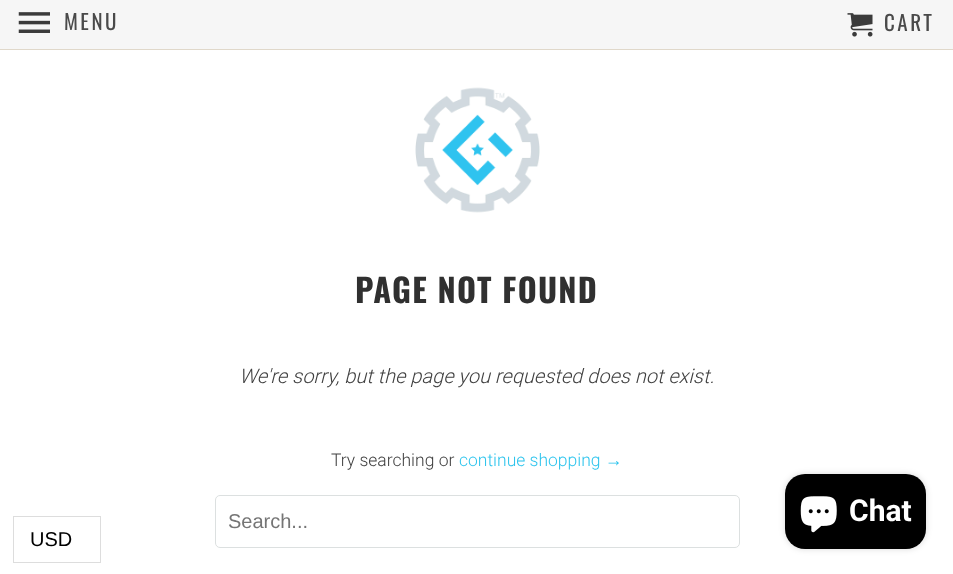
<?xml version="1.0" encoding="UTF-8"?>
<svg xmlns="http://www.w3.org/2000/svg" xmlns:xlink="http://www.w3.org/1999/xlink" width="953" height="574">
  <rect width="100%" height="100%" fill="#ffffff" />
  <rect width="953" height="49" fill="#f6f6f6" />
  <rect y="49" width="953" height="1" fill="#e0d8ca" />
  <image x="18" y="12" width="32" height="21" xlink:href="image1.png" />
  <image x="847" y="13" width="26" height="24" xlink:href="image2.png" />
  <image x="415" y="87" width="125" height="126" xlink:href="image3.png" />
  <rect x="215.5" y="495.5" width="524" height="52" rx="4.5" fill="none" stroke="#dce0e0" />
  <rect x="785" y="474" width="141" height="75" rx="20" fill="#000000" fill-opacity="0.15" filter="blur(3px)" />
  <rect x="785" y="474" width="141" height="75" rx="20" fill="#000000" />
  <image x="800" y="496" width="37" height="37" xlink:href="image4.png" />
  <rect x="13.5" y="516.5" width="87" height="46" fill="none" stroke="#dddddd" />
  <text x="64" y="30" style="font-family: Oswald; font-size: 21px; letter-spacing: 2.5px; fill: #4a4a4a">MENU</text>
  <text x="884" y="31" style="font-family: Oswald; font-size: 21px; letter-spacing: 2.5px; fill: #4a4a4a">CART</text>
  <text x="355" y="303" style="font-family: Oswald; font-size: 32.5px; font-weight: bold; letter-spacing: 1.25px; fill: #303030">PAGE NOT FOUND</text>
  <text x="239" y="383" style="font-family: Roboto; font-size: 20px; font-weight: 300; font-style: italic; fill: #404040">We're sorry, but the page you requested does not exist.</text>
  <text x="331" y="466" style="font-family: Roboto; font-size: 17.5px; font-weight: 300; fill: #404040">Try searching or</text>
  <text x="459" y="466" style="font-family: Roboto; font-size: 17.5px; font-weight: 300; fill: #2dc4ed">continue shopping</text>
  <text x="605" y="466" style="font-family: Liberation Serif; font-size: 17.5px; fill: #2dc4ed">→</text>
  <text x="228" y="528" style="font-family: Liberation Sans; font-size: 20px; fill: #757575">Search...</text>
  <text x="849" y="521" style="font-family: Roboto; font-size: 30px; font-weight: bold; fill: #ffffff">Chat</text>
  <text x="30" y="546" style="font-family: Liberation Sans; font-size: 20px; fill: #000000">USD</text>
</svg>
